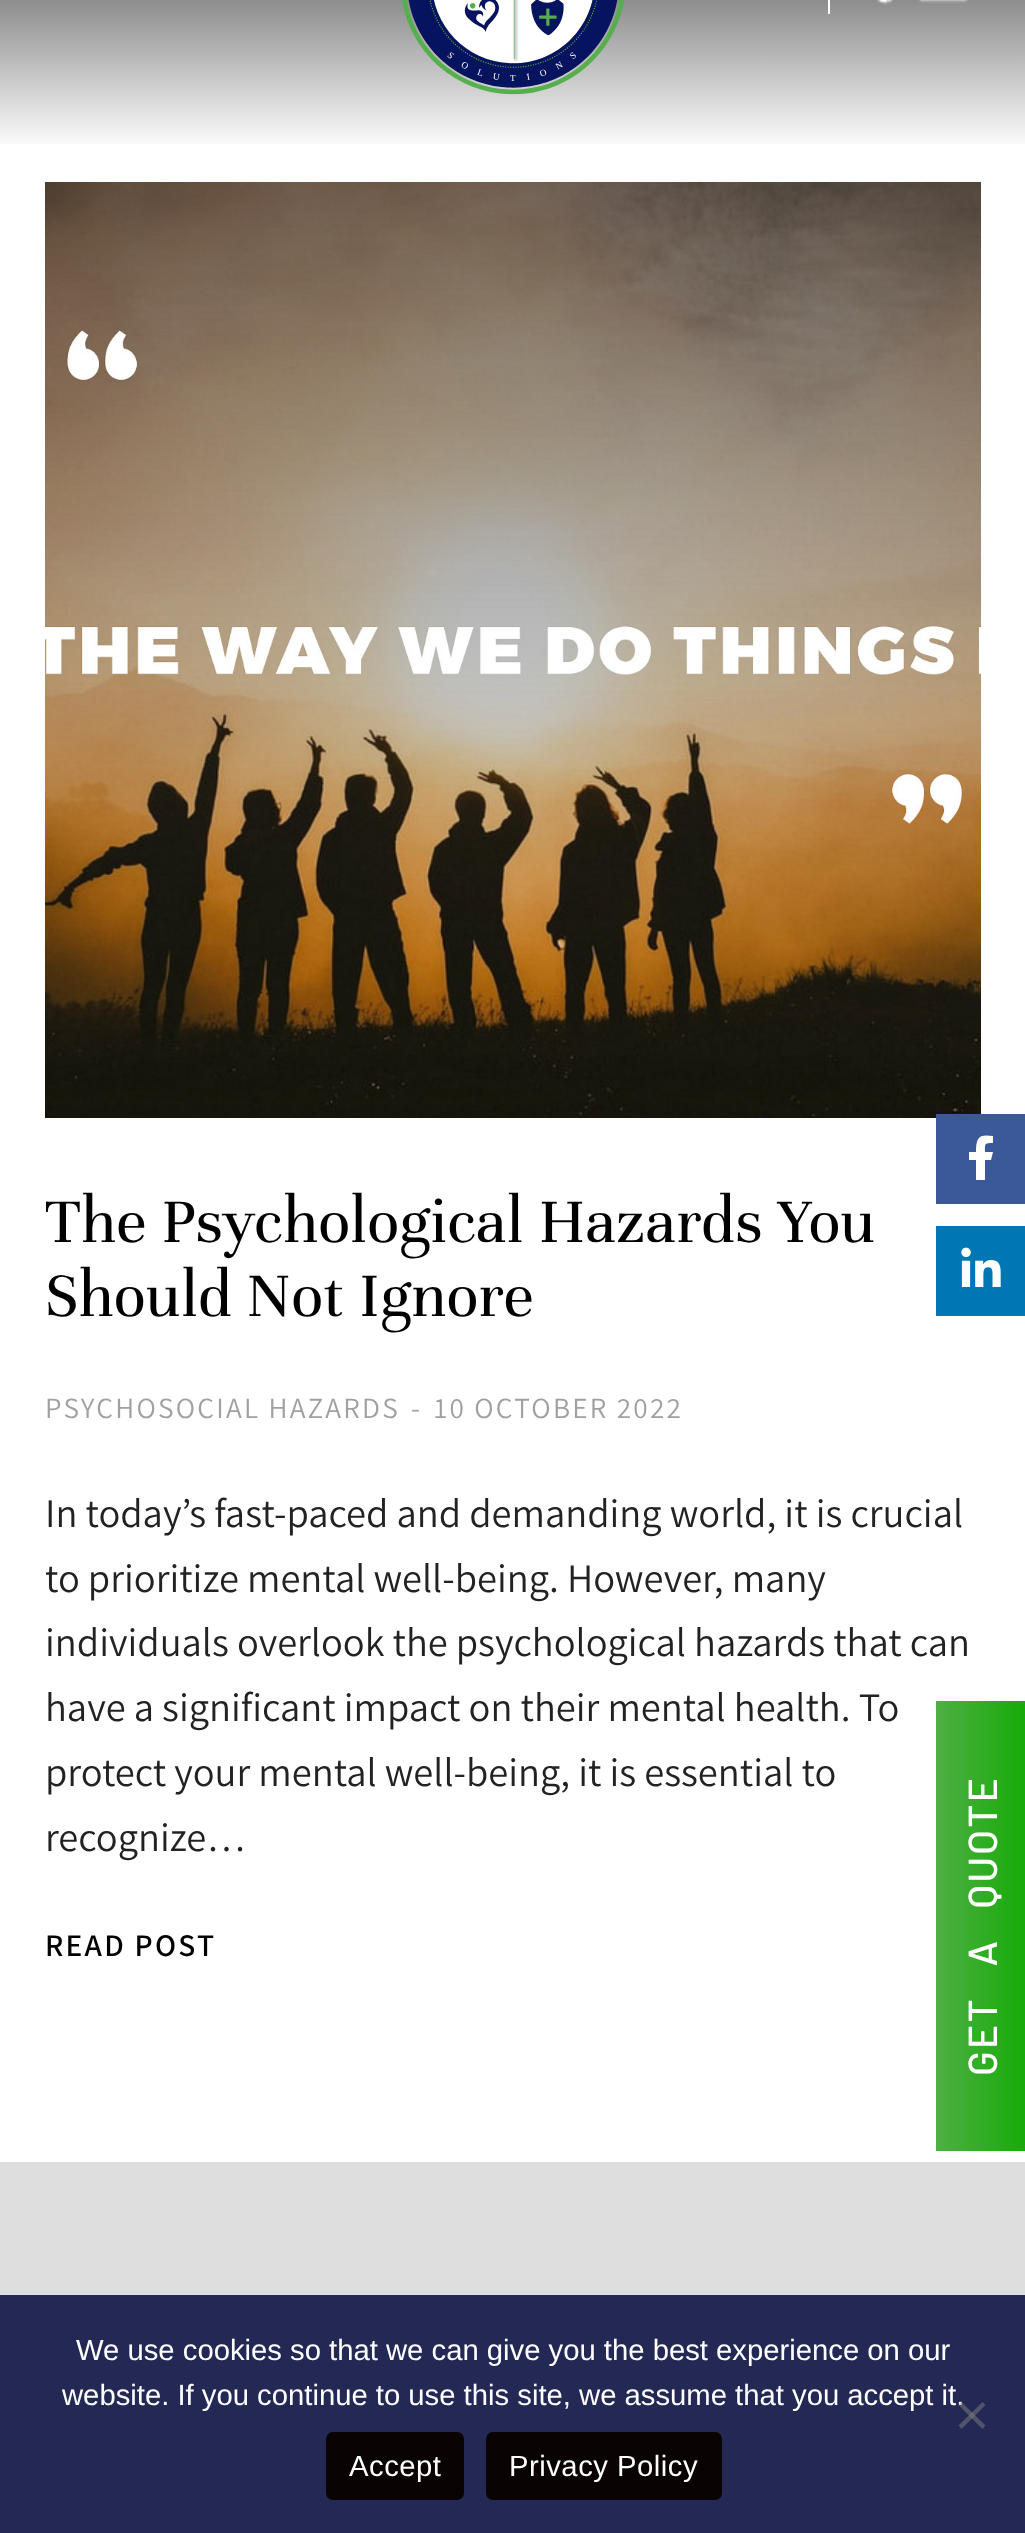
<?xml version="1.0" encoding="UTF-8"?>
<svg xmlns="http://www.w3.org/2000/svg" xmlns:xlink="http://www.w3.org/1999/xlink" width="1025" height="2533">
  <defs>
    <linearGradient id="g1" gradientUnits="userSpaceOnUse" x1="513" y1="-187" x2="513" y2="151"><stop offset="0" stop-color="#000000" /><stop offset="1" stop-color="#000000" stop-opacity="0" /></linearGradient>
    <linearGradient id="g2" gradientUnits="userSpaceOnUse" x1="925" y1="1926" x2="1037" y2="1926"><stop offset="0" stop-color="#55af4c" /><stop offset="1" stop-color="#10ab00" /></linearGradient>
  </defs>
  <rect width="100%" height="100%" fill="#ffffff" />
  <rect width="1025" height="144" fill="url(#g1)" />
  <image x="402" y="0" width="222" height="95" xlink:href="image1.png" />
  <rect x="828" width="2" height="14" fill="#ffffff" />
  <image x="876" y="0" width="92" height="5" xlink:href="image2.png" />
  <image x="45" y="182" width="936" height="936" xlink:href="image3.png" />
  <rect y="2162" width="1025" height="133" fill="#dedede" />
  <rect x="936" y="1114" width="89" height="90" fill="#3b5998" />
  <path d="M 991 1160 h -6 v 20 h -9 v -20 h -7 v -8 h 7 c 0 -15 3 -18 17 -16 v 7 c -9 0 -8 1 -8 9 h 8 z" fill="#ffffff" />
  <rect x="936" y="1226" width="89" height="90" fill="#0077b5" />
  <image x="961" y="1247" width="40" height="40" xlink:href="image4.png" />
  <rect x="936" y="1701" width="89" height="450" fill="url(#g2)" />
  <rect y="2295" width="1025" height="238" fill="#232954" />
  <rect x="326" y="2432" width="138" height="68" rx="7" fill="#0a0303" />
  <rect x="486" y="2432" width="236" height="68" rx="7" fill="#0a0303" />
  <text x="45" y="1242" style="font-family: Unna; font-size: 67.5px; fill: #000000">The Psychological Hazards You</text>
  <text x="45" y="1316" style="font-family: Unna; font-size: 67.5px; fill: #000000">Should Not Ignore</text>
  <text x="45" y="1418" style="font-family: Assistant; font-size: 29.25px; letter-spacing: 2.25px; fill: #a0a0a0">PSYCHOSOCIAL HAZARDS</text>
  <text x="411" y="1418" style="font-family: Assistant; font-size: 29.25px; letter-spacing: 2.25px; fill: #a0a0a0">-</text>
  <text x="434" y="1418" style="font-family: Assistant; font-size: 29.25px; letter-spacing: 2.25px; fill: #a0a0a0">10 OCTOBER 2022</text>
  <text x="45" y="1527" style="font-family: Assistant; font-size: 40.5px; fill: #222222">In today’s fast-paced and demanding world, it is crucial</text>
  <text x="45" y="1592" style="font-family: Assistant; font-size: 40.5px; fill: #222222">to prioritize mental well-being. However, many</text>
  <text x="45" y="1656" style="font-family: Assistant; font-size: 40.5px; fill: #222222">individuals overlook the psychological hazards that can</text>
  <text x="45" y="1721" style="font-family: Assistant; font-size: 40.5px; fill: #222222">have a significant impact on their mental health. To</text>
  <text x="45" y="1786" style="font-family: Assistant; font-size: 40.5px; fill: #222222">protect your mental well-being, it is essential to</text>
  <text x="45" y="1851" style="font-family: Assistant; font-size: 40.5px; fill: #222222">recognize…</text>
  <text x="45" y="1956" style="font-family: Assistant; font-size: 31.5px; font-weight: 600; letter-spacing: 2.25px; fill: #000000">READ POST</text>
  <text x="997" y="2076" transform="rotate(-90 997 2076)" word-spacing="20" style="font-family: Barlow; font-size: 40.5px; font-weight: 500; letter-spacing: 2.25px; fill: #ffffff">GET A QUOTE</text>
  <text x="76" y="2360" style="font-family: Liberation Sans; font-size: 29.25px; fill: #ffffff">We use cookies so that we can give you the best experience on our</text>
  <text x="62" y="2405" style="font-family: Liberation Sans; font-size: 29.25px; fill: #ffffff">website. If you continue to use this site, we assume that you accept it.</text>
  <path d="M 982.5 2402 l 3 3 l -24 24 l -3 -3.5 z" fill="#52556a" />
  <path d="M 958.5 2405 l 3 -3 l 24 23.5 l -3 3.5 z" fill="#808080" fill-opacity="0.5" />
  <text x="349" y="2476" style="font-family: Liberation Sans; font-size: 29.25px; letter-spacing: 0.5px; fill: #ffffff">Accept</text>
  <text x="509" y="2476" style="font-family: Liberation Sans; font-size: 29.25px; letter-spacing: 0.5px; fill: #ffffff">Privacy Policy</text>
</svg>
